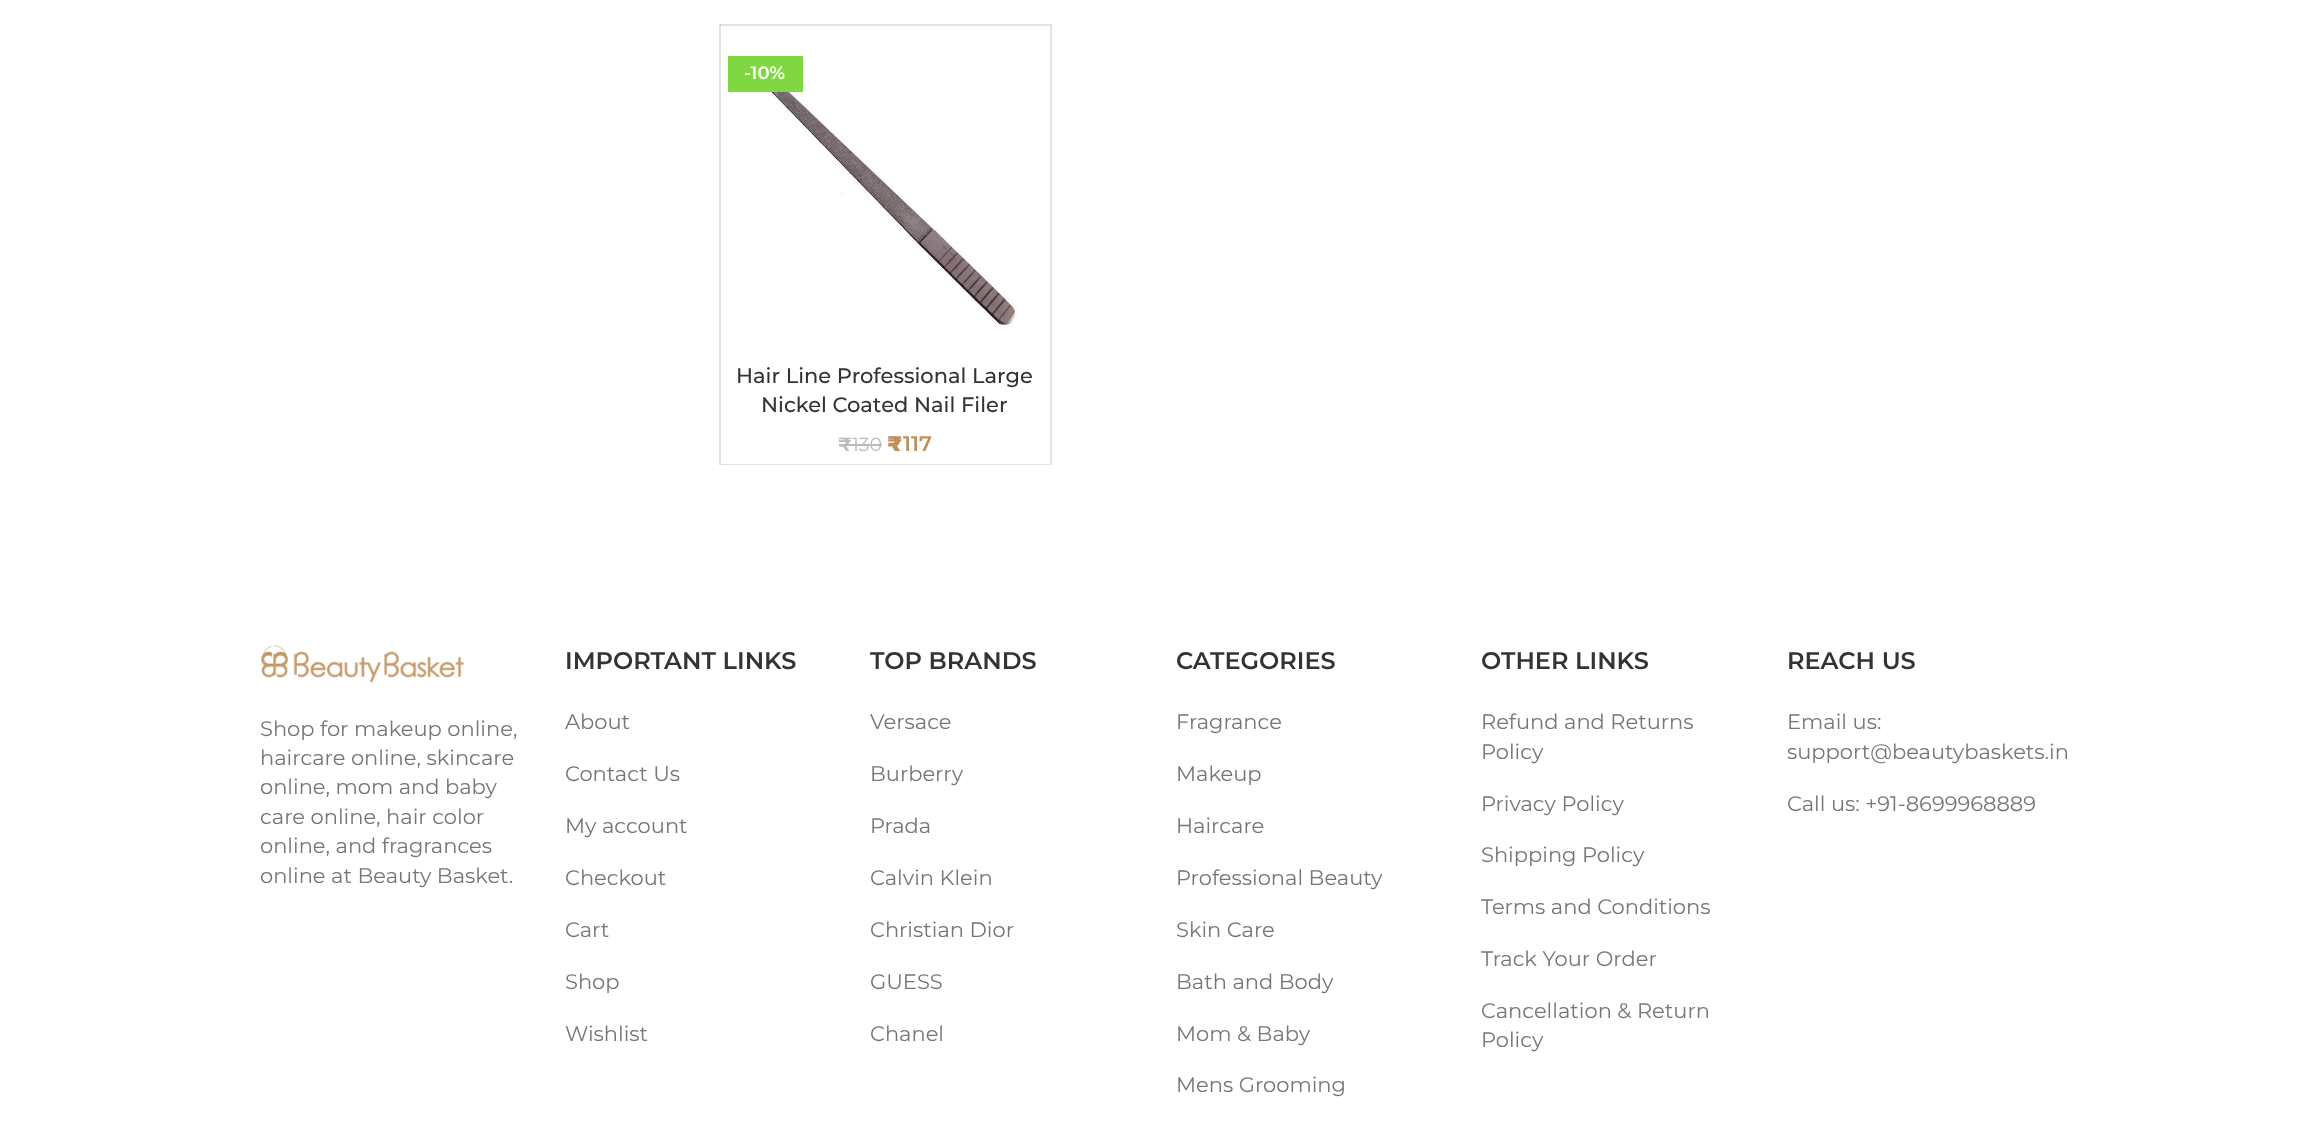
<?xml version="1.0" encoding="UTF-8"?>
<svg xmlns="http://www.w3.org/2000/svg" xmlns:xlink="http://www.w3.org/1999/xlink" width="2306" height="1132">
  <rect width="100%" height="100%" fill="#ffffff" />
  <rect x="719" y="24" width="2" height="441" fill="#e4e4e4" />
  <path d="M 720 24 h 332 l -2 2 h -330 z" fill="#000000" fill-opacity="0.11" />
  <path d="M 1052 24 v 441 l -2 -1 v -438 z" fill="#000000" fill-opacity="0.11" />
  <path d="M 1052 465 h -332 v -1 h 330 z" fill="#000000" fill-opacity="0.11" />
  <image x="751" y="65" width="268" height="261" xlink:href="image1.png" />
  <rect x="728" y="56" width="75" height="36" fill="#81d742" />
  <rect x="839" y="444" width="13" height="2" fill="#bbbbbb" />
  <rect x="852" y="444" width="30" height="2" fill="#bbbbbb" />
  <image x="261" y="645" width="203" height="38" xlink:href="image2.png" />
  <text x="744" y="79" style="font-family: Montserrat; font-size: 18px; font-weight: 600; fill: #ffffff">-10%</text>
  <text x="736" y="383" style="font-family: Montserrat; font-size: 21px; font-weight: 500; fill: #333333">Hair Line Professional Large</text>
  <text x="761" y="412" style="font-family: Montserrat; font-size: 21px; font-weight: 500; fill: #333333">Nickel Coated Nail Filer</text>
  <text x="838" y="451" style="font-family: Montserrat; font-size: 19px; font-weight: bold; fill: #bbbbbb">₹</text>
  <text x="852" y="451" style="font-family: Montserrat; font-size: 19px; fill: #bbbbbb">130</text>
  <text x="887" y="451" style="font-family: Montserrat; font-size: 21px; font-weight: 900; fill: #bf905d">₹</text>
  <text x="903" y="451" style="font-family: Montserrat; font-size: 21px; font-weight: 600; fill: #bf905d">117</text>
  <text x="260" y="736" style="font-family: Montserrat; font-size: 21px; fill: #767676">Shop for makeup online,</text>
  <text x="260" y="765" style="font-family: Montserrat; font-size: 21px; fill: #767676">haircare online, skincare</text>
  <text x="260" y="794" style="font-family: Montserrat; font-size: 21px; fill: #767676">online, mom and baby</text>
  <text x="260" y="824" style="font-family: Montserrat; font-size: 21px; fill: #767676">care online, hair color</text>
  <text x="260" y="853" style="font-family: Montserrat; font-size: 21px; fill: #767676">online, and fragrances</text>
  <text x="260" y="883" style="font-family: Montserrat; font-size: 21px; fill: #767676">online at Beauty Basket.</text>
  <text x="565" y="669" style="font-family: Montserrat; font-size: 24px; font-weight: 600; fill: #333333">IMPORTANT LINKS</text>
  <text x="565" y="729" style="font-family: Montserrat; font-size: 21px; fill: #767676">About</text>
  <text x="565" y="781" style="font-family: Montserrat; font-size: 21px; fill: #767676">Contact Us</text>
  <text x="565" y="833" style="font-family: Montserrat; font-size: 21px; fill: #767676">My account</text>
  <text x="565" y="885" style="font-family: Montserrat; font-size: 21px; fill: #767676">Checkout</text>
  <text x="565" y="937" style="font-family: Montserrat; font-size: 21px; fill: #767676">Cart</text>
  <text x="565" y="989" style="font-family: Montserrat; font-size: 21px; fill: #767676">Shop</text>
  <text x="565" y="1041" style="font-family: Montserrat; font-size: 21px; fill: #767676">Wishlist</text>
  <text x="870" y="669" style="font-family: Montserrat; font-size: 24px; font-weight: 600; fill: #333333">TOP BRANDS</text>
  <text x="870" y="729" style="font-family: Montserrat; font-size: 21px; fill: #767676">Versace</text>
  <text x="870" y="781" style="font-family: Montserrat; font-size: 21px; fill: #767676">Burberry</text>
  <text x="870" y="833" style="font-family: Montserrat; font-size: 21px; fill: #767676">Prada</text>
  <text x="870" y="885" style="font-family: Montserrat; font-size: 21px; fill: #767676">Calvin Klein</text>
  <text x="870" y="937" style="font-family: Montserrat; font-size: 21px; fill: #767676">Christian Dior</text>
  <text x="870" y="989" style="font-family: Montserrat; font-size: 21px; fill: #767676">GUESS</text>
  <text x="870" y="1041" style="font-family: Montserrat; font-size: 21px; fill: #767676">Chanel</text>
  <text x="1176" y="669" style="font-family: Montserrat; font-size: 24px; font-weight: 600; fill: #333333">CATEGORIES</text>
  <text x="1176" y="729" style="font-family: Montserrat; font-size: 21px; fill: #767676">Fragrance</text>
  <text x="1176" y="781" style="font-family: Montserrat; font-size: 21px; fill: #767676">Makeup</text>
  <text x="1176" y="833" style="font-family: Montserrat; font-size: 21px; fill: #767676">Haircare</text>
  <text x="1176" y="885" style="font-family: Montserrat; font-size: 21px; fill: #767676">Professional Beauty</text>
  <text x="1176" y="937" style="font-family: Montserrat; font-size: 21px; fill: #767676">Skin Care</text>
  <text x="1176" y="989" style="font-family: Montserrat; font-size: 21px; fill: #767676">Bath and Body</text>
  <text x="1176" y="1041" style="font-family: Montserrat; font-size: 21px; fill: #767676">Mom &amp; Baby</text>
  <text x="1176" y="1092" style="font-family: Montserrat; font-size: 21px; fill: #767676">Mens Grooming</text>
  <text x="1481" y="669" style="font-family: Montserrat; font-size: 24px; font-weight: 600; fill: #333333">OTHER LINKS</text>
  <text x="1481" y="729" style="font-family: Montserrat; font-size: 21px; fill: #767676">Refund and Returns</text>
  <text x="1481" y="759" style="font-family: Montserrat; font-size: 21px; fill: #767676">Policy</text>
  <text x="1481" y="811" style="font-family: Montserrat; font-size: 21px; fill: #767676">Privacy Policy</text>
  <text x="1481" y="862" style="font-family: Montserrat; font-size: 21px; fill: #767676">Shipping Policy</text>
  <text x="1481" y="914" style="font-family: Montserrat; font-size: 21px; fill: #767676">Terms and Conditions</text>
  <text x="1481" y="966" style="font-family: Montserrat; font-size: 21px; fill: #767676">Track Your Order</text>
  <text x="1481" y="1018" style="font-family: Montserrat; font-size: 21px; fill: #767676">Cancellation &amp; Return</text>
  <text x="1481" y="1047" style="font-family: Montserrat; font-size: 21px; fill: #767676">Policy</text>
  <text x="1787" y="669" style="font-family: Montserrat; font-size: 24px; font-weight: 600; fill: #333333">REACH US</text>
  <text x="1787" y="729" style="font-family: Montserrat; font-size: 21px; fill: #767676">Email us:</text>
  <text x="1787" y="759" style="font-family: Montserrat; font-size: 21px; fill: #767676">support@beautybaskets.in</text>
  <text x="1787" y="811" style="font-family: Montserrat; font-size: 21px; fill: #767676">Call us: +91-8699968889</text>
</svg>
